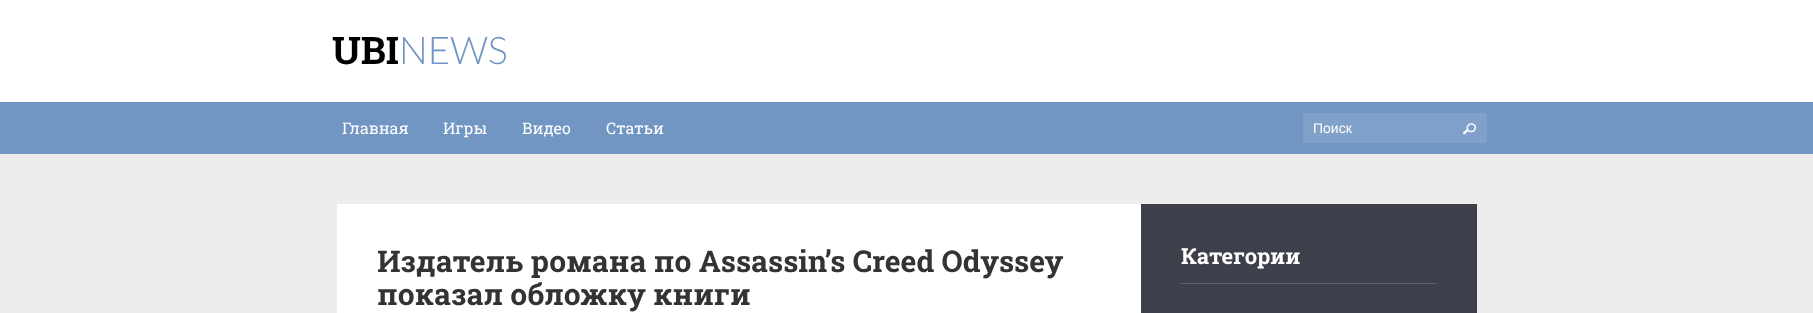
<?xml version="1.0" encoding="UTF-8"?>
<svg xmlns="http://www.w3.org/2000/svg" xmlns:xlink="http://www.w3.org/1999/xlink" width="1813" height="313">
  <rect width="100%" height="100%" fill="#ededed" />
  <rect width="1813" height="102" fill="#ffffff" />
  <rect y="102" width="1813" height="52" fill="#7296c3" />
  <path d="M 1306 113 h 147 v 30 h -147 c -1.5 0 -3 -1.5 -3 -3 v -24 c 0 -1.5 1.5 -3 3 -3 z" fill="#80a1c9" />
  <path d="M 1453 113 h 31 c 1.5 0 3 1.5 3 3 v 24 c 0 1.5 -1.5 3 -3 3 h -31 z" fill="#80a1c9" />
  <image x="1463" y="123" width="13" height="12" xlink:href="image1.png" />
  <rect x="337" y="204" width="804" height="109" fill="#ffffff" />
  <rect x="1141" y="204" width="336" height="109" fill="#3d3f4b" />
  <rect x="1181" y="283" width="256" height="1" fill="#5d6072" />
  <text x="332" y="64" style="font-family: Roboto Slab; font-size: 38px; font-weight: bold; fill: #000000">UBI</text>
  <text x="399" y="64" style="font-family: Lato; font-size: 38px; font-weight: 300; fill: #7296c3">NEWS</text>
  <text x="342" y="134" style="font-family: Roboto Slab; font-size: 16px; fill: #ffffff">Главная</text>
  <text x="443" y="134" style="font-family: Roboto Slab; font-size: 16px; fill: #ffffff">Игры</text>
  <text x="522" y="134" style="font-family: Roboto Slab; font-size: 16px; fill: #ffffff">Видео</text>
  <text x="606" y="134" style="font-family: Roboto Slab; font-size: 16px; fill: #ffffff">Статьи</text>
  <text x="1313" y="133" style="font-family: Liberation Sans; font-size: 14px; fill: #ffffff">Поиск</text>
  <text x="377" y="272" style="font-family: Roboto Slab; font-size: 30px; font-weight: bold; fill: #333333">Издатель романа по Assassin’s Creed Odyssey</text>
  <text x="377" y="305" style="font-family: Roboto Slab; font-size: 30px; font-weight: bold; fill: #333333">показал обложку книги</text>
  <text x="1181" y="264" style="font-family: Roboto Slab; font-size: 22px; font-weight: bold; fill: #ffffff">Категории</text>
</svg>
